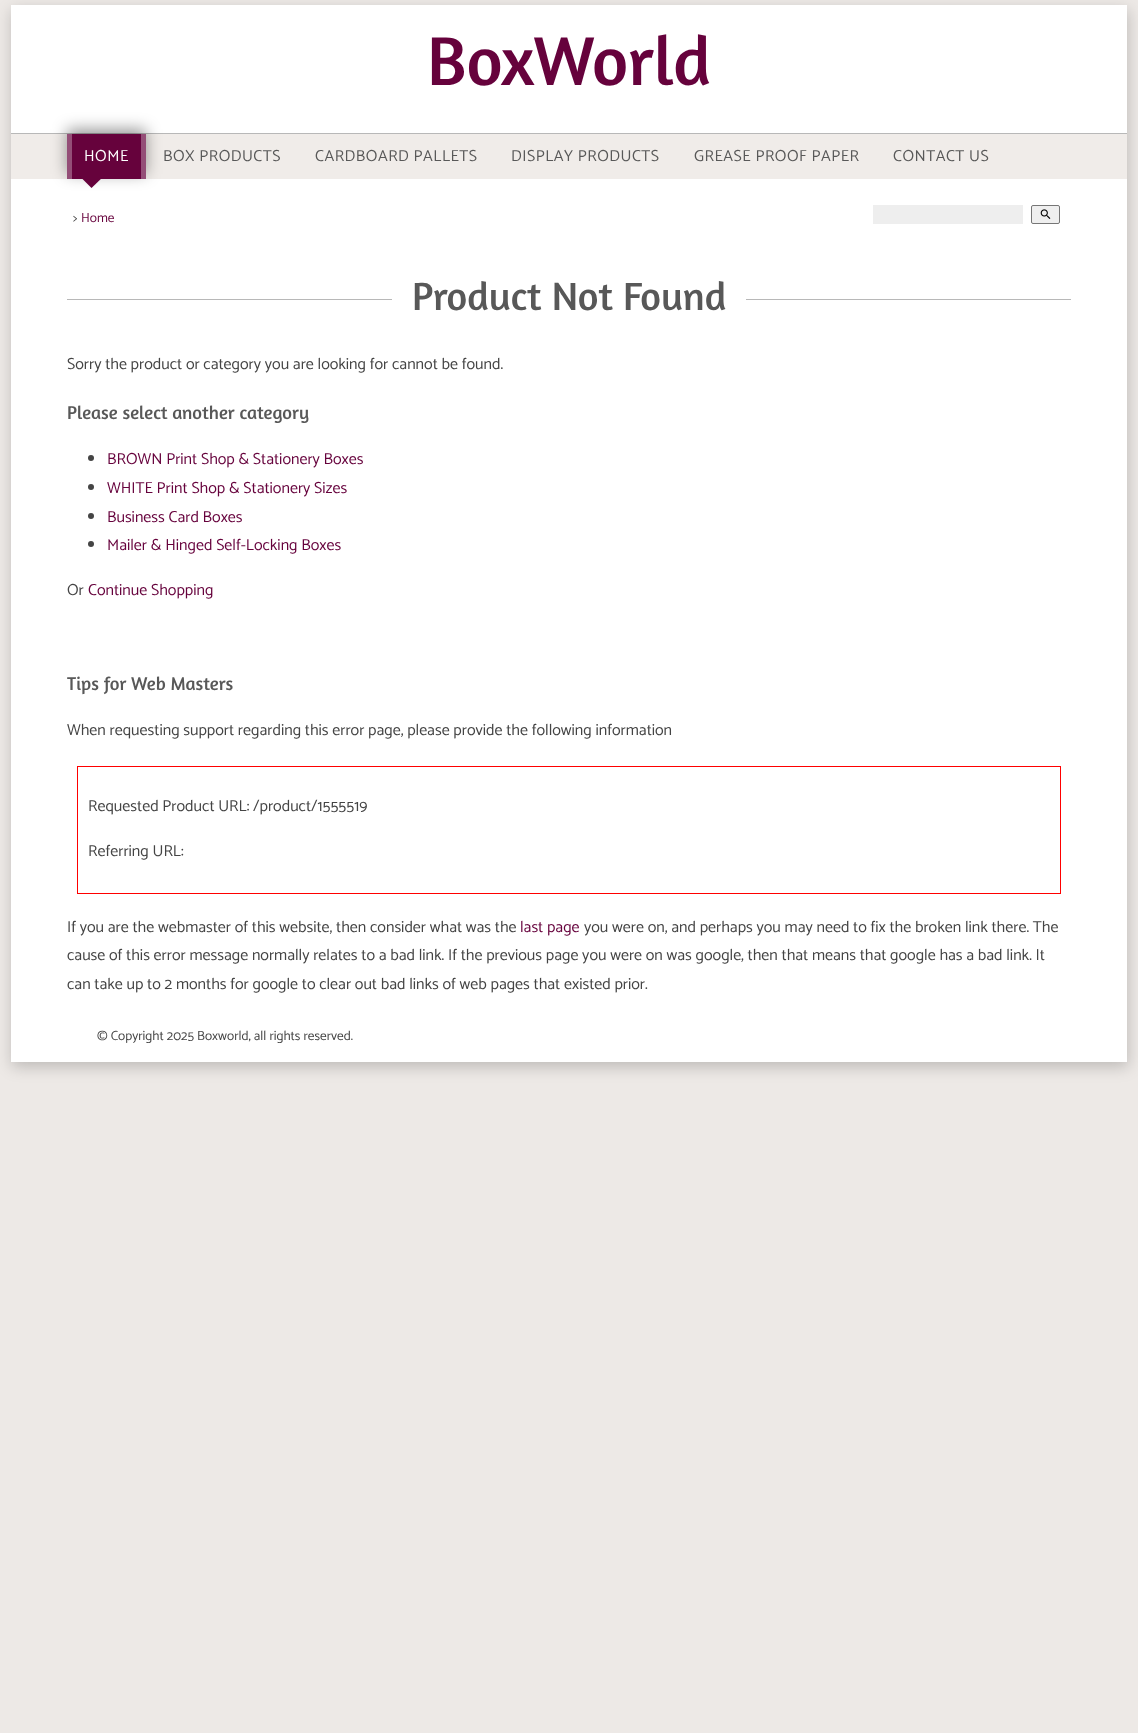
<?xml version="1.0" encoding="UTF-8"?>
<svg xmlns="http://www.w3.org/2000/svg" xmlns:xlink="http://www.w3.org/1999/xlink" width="1138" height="1733">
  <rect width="100%" height="100%" fill="#ede9e6" />
  <rect x="12" y="10" width="1116" height="1057" fill="#000000" fill-opacity="0.2" filter="blur(7.5px)" />
  <rect x="11" y="5" width="1116" height="1057" fill="#ffffff" />
  <rect x="11" y="133" width="1116" height="1" fill="#b8b8b8" />
  <rect x="11" y="134" width="1116" height="45" fill="#f0ece9" />
  <rect x="67" y="129" width="79" height="45" fill="#000000" fill-opacity="0.4" filter="blur(7.5px)" />
  <rect x="67" y="134" width="79" height="45" fill="#944e77" />
  <rect x="72" y="134" width="69" height="45" fill="#66023c" />
  <path d="M 79 175.5 h 25.5 l -13 12.5 z" fill="#66023c" />
  <rect x="873" y="205" width="150" height="19" fill="#eeeeee" />
  <rect x="1031.5" y="205.5" width="28" height="18" rx="1.5" fill="#efefef" stroke="#767676" />
  <image x="1040" y="209" width="11" height="10" xlink:href="image1.png" />
  <rect x="67" y="299" width="325" height="1" fill="#b8b8b8" />
  <rect x="746" y="299" width="325" height="1" fill="#b8b8b8" />
  <circle cx="91" cy="458" r="3" fill="#444444" />
  <circle cx="91" cy="487" r="3" fill="#444444" />
  <circle cx="91" cy="516" r="3" fill="#444444" />
  <circle cx="91" cy="544" r="3" fill="#444444" />
  <rect x="77.5" y="766.5" width="983" height="127" fill="none" stroke="#ff0000" />
  <text x="427" y="85" style="font-family: Amaranth; font-size: 70px; fill: #66023c">BoxWorld</text>
  <text x="84" y="161" style="font-family: Catamaran; font-size: 16px; letter-spacing: 0.5px; fill: #ffffff">HOME</text>
  <text x="163" y="161" style="font-family: Catamaran; font-size: 16px; letter-spacing: 0.5px; fill: #585858">BOX PRODUCTS</text>
  <text x="315" y="161" style="font-family: Catamaran; font-size: 16px; letter-spacing: 0.5px; fill: #585858">CARDBOARD PALLETS</text>
  <text x="511" y="161" style="font-family: Catamaran; font-size: 16px; letter-spacing: 0.5px; fill: #585858">DISPLAY PRODUCTS</text>
  <text x="694" y="161" style="font-family: Catamaran; font-size: 16px; letter-spacing: 0.5px; fill: #585858">GREASE PROOF PAPER</text>
  <text x="893" y="161" style="font-family: Catamaran; font-size: 16px; letter-spacing: 0.5px; fill: #585858">CONTACT US</text>
  <text x="73" y="222" style="font-family: Catamaran; font-size: 13.3px; fill: #444444">&gt;</text>
  <text x="81" y="222" style="font-family: Catamaran; font-size: 13.3px; fill: #66023c">Home</text>
  <text x="412" y="310" style="font-family: Amaranth; font-size: 40px; fill: #585858">Product Not Found</text>
  <text x="67" y="369" style="font-family: Catamaran; font-size: 16px; fill: #444444">Sorry the product or category you are looking for cannot be found.</text>
  <text x="67" y="419" style="font-family: Amaranth; font-size: 18.75px; fill: #585858">Please select another category</text>
  <text x="107" y="464" style="font-family: Catamaran; font-size: 16px; fill: #66023c">BROWN Print Shop &amp; Stationery Boxes</text>
  <text x="107" y="493" style="font-family: Catamaran; font-size: 16px; fill: #66023c">WHITE Print Shop &amp; Stationery Sizes</text>
  <text x="107" y="522" style="font-family: Catamaran; font-size: 16px; fill: #66023c">Business Card Boxes</text>
  <text x="107" y="550" style="font-family: Catamaran; font-size: 16px; fill: #66023c">Mailer &amp; Hinged Self-Locking Boxes</text>
  <text x="67" y="595" style="font-family: Catamaran; font-size: 16px; fill: #444444">Or</text>
  <text x="88" y="595" style="font-family: Catamaran; font-size: 16px; fill: #66023c">Continue Shopping</text>
  <text x="67" y="690" style="font-family: Amaranth; font-size: 18.75px; fill: #585858">Tips for Web Masters</text>
  <text x="67" y="735" style="font-family: Catamaran; font-size: 16px; fill: #444444">When requesting support regarding this error page, please provide the following information</text>
  <text x="88" y="811" style="font-family: Catamaran; font-size: 16px; fill: #444444">Requested Product URL: /product/1555519</text>
  <text x="88" y="856" style="font-family: Catamaran; font-size: 16px; fill: #444444">Referring URL:</text>
  <text x="67" y="932" style="font-family: Catamaran; font-size: 16px; fill: #444444">If you are the webmaster of this website, then consider what was the</text>
  <text x="520" y="932" style="font-family: Catamaran; font-size: 16px; fill: #66023c">last page</text>
  <text x="584" y="932" style="font-family: Catamaran; font-size: 16px; fill: #444444">you were on, and perhaps you may need to fix the broken link there. The</text>
  <text x="67" y="960" style="font-family: Catamaran; font-size: 16px; fill: #444444">cause of this error message normally relates to a bad link. If the previous page you were on was google, then that means that google has a bad link. It</text>
  <text x="67" y="989" style="font-family: Catamaran; font-size: 16px; fill: #444444">can take up to 2 months for google to clear out bad links of web pages that existed prior.</text>
  <text x="97" y="1040" style="font-family: Catamaran; font-size: 13.3px; fill: #444444">© Copyright 2025 Boxworld, all rights reserved.</text>
</svg>
